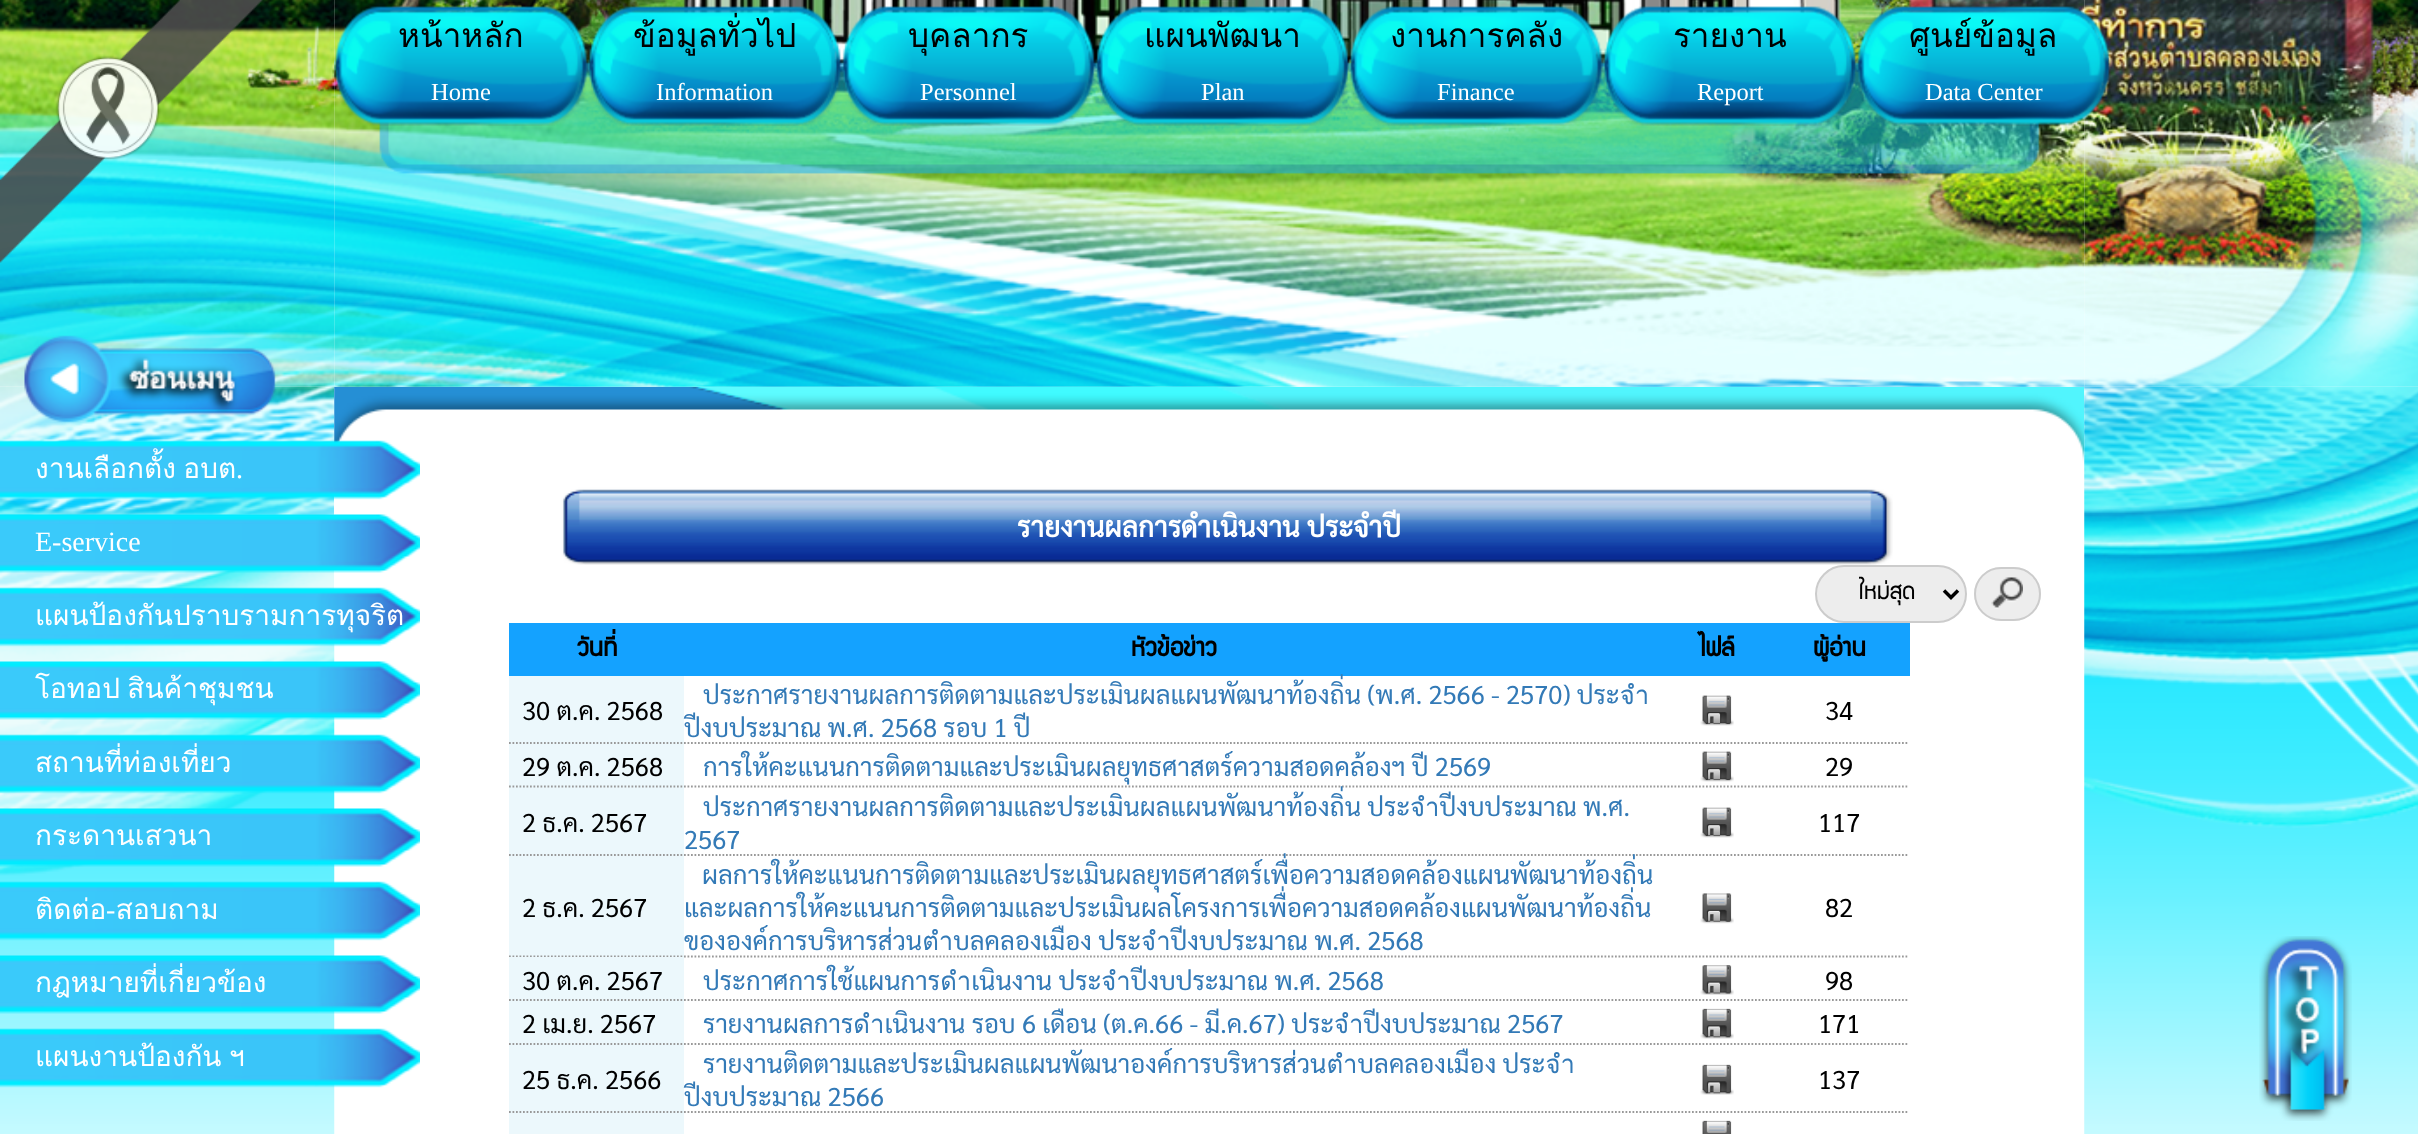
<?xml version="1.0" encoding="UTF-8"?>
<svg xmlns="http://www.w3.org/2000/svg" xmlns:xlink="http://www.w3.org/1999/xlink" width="2418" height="1134">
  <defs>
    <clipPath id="clip1"><rect x="1859" y="572" width="70" height="41" /></clipPath>
  </defs>
  <rect width="100%" height="100%" fill="#ffffff" />
  <image x="0" y="0" width="335" height="387" xlink:href="image20.png" />
  <image x="0" y="0" width="263" height="263" xlink:href="image1.png" />
  <image x="2084" y="0" width="334" height="387" xlink:href="image22.png" />
  <image x="0" y="386" width="335" height="748" xlink:href="image23.png" />
  <image x="334" y="386" width="1751" height="256" xlink:href="image24.png" />
  <image x="2084" y="386" width="334" height="748" xlink:href="image33.png" />
  <image x="334" y="0" width="1751" height="387" xlink:href="image21.png" />
  <image x="379" y="62" width="1661" height="112" xlink:href="image2.png" />
  <image x="334" y="6" width="255" height="120" xlink:href="image3.png" />
  <image x="588" y="6" width="254" height="120" xlink:href="image4.png" />
  <image x="841" y="6" width="255" height="120" xlink:href="image5.png" />
  <image x="1095" y="6" width="255" height="120" xlink:href="image6.png" />
  <image x="1349" y="6" width="255" height="120" xlink:href="image7.png" />
  <image x="1603" y="6" width="254" height="120" xlink:href="image8.png" />
  <image x="1856" y="6" width="255" height="120" xlink:href="image9.png" />
  <image x="24" y="335" width="252" height="88" xlink:href="image10.png" />
  <image x="334" y="487" width="1559" height="78" xlink:href="image25.png" />
  <image x="0" y="440" width="420" height="60" xlink:href="image11.png" />
  <image x="0" y="514" width="420" height="59" xlink:href="image12.png" />
  <image x="0" y="587" width="420" height="60" xlink:href="image13.png" />
  <image x="0" y="661" width="420" height="59" xlink:href="image14.png" />
  <image x="0" y="734" width="420" height="60" xlink:href="image15.png" />
  <image x="0" y="808" width="420" height="59" xlink:href="image16.png" />
  <image x="0" y="881" width="420" height="60" xlink:href="image17.png" />
  <image x="0" y="955" width="420" height="59" xlink:href="image18.png" />
  <image x="0" y="1028" width="420" height="60" xlink:href="image19.png" />
  <rect x="1816" y="566" width="150" height="56" rx="28" fill="#ededed" stroke="#cccccc" stroke-width="2" />
  <path d="M 1944 590.5 l 7 7 l 7 -7" fill="none" stroke="#000000" stroke-width="3.5" />
  <rect x="1974" y="567" width="67" height="54" rx="27" fill="#ededed" />
  <image x="1991" y="577" width="32" height="32" xlink:href="image26.png" />
  <rect x="1975" y="568" width="65" height="52" rx="26" fill="none" stroke="#cccccc" stroke-width="2" />
  <rect x="509" y="623" width="1401" height="53" fill="#14a2ff" />
  <rect x="509" y="676" width="175" height="281" fill="#ecf8fc" />
  <path d="M 509 743 h 175" fill="none" stroke="#999999" stroke-width="1.8" stroke-dasharray="1.75 1.75" />
  <path d="M 684 743 h 980" fill="none" stroke="#999999" stroke-width="1.8" stroke-dasharray="1.75 1.75" />
  <path d="M 1664 743 h 105" fill="none" stroke="#999999" stroke-width="1.8" stroke-dasharray="1.75 1.75" />
  <image x="1700" y="695" width="34" height="31" xlink:href="image27.png" />
  <path d="M 1769 743 h 140" fill="none" stroke="#999999" stroke-width="1.8" stroke-dasharray="1.75 1.75" />
  <path d="M 509 786.5 h 175" fill="none" stroke="#999999" stroke-width="1.8" stroke-dasharray="1.75 1.75" />
  <path d="M 684 786.5 h 980" fill="none" stroke="#999999" stroke-width="1.8" stroke-dasharray="1.75 1.75" />
  <path d="M 1664 786.5 h 105" fill="none" stroke="#999999" stroke-width="1.8" stroke-dasharray="1.75 1.75" />
  <image x="1700" y="751" width="34" height="31" xlink:href="image28.png" />
  <path d="M 1769 786.5 h 140" fill="none" stroke="#999999" stroke-width="1.8" stroke-dasharray="1.75 1.75" />
  <path d="M 509 855 h 175" fill="none" stroke="#999999" stroke-width="1.8" stroke-dasharray="1.75 1.75" />
  <path d="M 684 855 h 980" fill="none" stroke="#999999" stroke-width="1.8" stroke-dasharray="1.75 1.75" />
  <path d="M 1664 855 h 105" fill="none" stroke="#999999" stroke-width="1.8" stroke-dasharray="1.75 1.75" />
  <image x="1700" y="807" width="34" height="31" xlink:href="image27.png" />
  <path d="M 1769 855 h 140" fill="none" stroke="#999999" stroke-width="1.8" stroke-dasharray="1.75 1.75" />
  <path d="M 509 956.5 h 175" fill="none" stroke="#999999" stroke-width="1.8" stroke-dasharray="1.75 1.75" />
  <path d="M 684 956.5 h 980" fill="none" stroke="#999999" stroke-width="1.8" stroke-dasharray="1.75 1.75" />
  <path d="M 1664 956.5 h 105" fill="none" stroke="#999999" stroke-width="1.8" stroke-dasharray="1.75 1.75" />
  <image x="1700" y="893" width="34" height="31" xlink:href="image29.png" />
  <path d="M 1769 956.5 h 140" fill="none" stroke="#999999" stroke-width="1.8" stroke-dasharray="1.75 1.75" />
  <rect x="509" y="957" width="175" height="177" fill="#ecf8fc" />
  <path d="M 509 1000 h 175" fill="none" stroke="#999999" stroke-width="1.8" stroke-dasharray="1.75 1.75" />
  <path d="M 684 1000 h 980" fill="none" stroke="#999999" stroke-width="1.8" stroke-dasharray="1.75 1.75" />
  <path d="M 1664 1000 h 105" fill="none" stroke="#999999" stroke-width="1.8" stroke-dasharray="1.75 1.75" />
  <image x="1700" y="965" width="34" height="30" xlink:href="image30.png" />
  <path d="M 1769 1000 h 140" fill="none" stroke="#999999" stroke-width="1.8" stroke-dasharray="1.75 1.75" />
  <path d="M 509 1044 h 175" fill="none" stroke="#999999" stroke-width="1.8" stroke-dasharray="1.75 1.75" />
  <path d="M 684 1044 h 980" fill="none" stroke="#999999" stroke-width="1.8" stroke-dasharray="1.75 1.75" />
  <path d="M 1664 1044 h 105" fill="none" stroke="#999999" stroke-width="1.8" stroke-dasharray="1.75 1.75" />
  <image x="1700" y="1008" width="34" height="31" xlink:href="image31.png" />
  <path d="M 1769 1044 h 140" fill="none" stroke="#999999" stroke-width="1.8" stroke-dasharray="1.75 1.75" />
  <path d="M 509 1112 h 175" fill="none" stroke="#999999" stroke-width="1.8" stroke-dasharray="1.75 1.75" />
  <path d="M 684 1112 h 980" fill="none" stroke="#999999" stroke-width="1.8" stroke-dasharray="1.75 1.75" />
  <path d="M 1664 1112 h 105" fill="none" stroke="#999999" stroke-width="1.8" stroke-dasharray="1.75 1.75" />
  <image x="1700" y="1064" width="34" height="31" xlink:href="image31.png" />
  <path d="M 1769 1112 h 140" fill="none" stroke="#999999" stroke-width="1.8" stroke-dasharray="1.75 1.75" />
  <image x="1702" y="1120" width="30" height="14" xlink:href="image32.png" />
  <image x="2259" y="936" width="93" height="185" xlink:href="image34.png" />
  <text x="398" y="47" style="font-family: Loma; font-size: 33.25px; fill: #000000">หน้าหลัก</text>
  <text x="431" y="100" style="font-family: Liberation Serif; font-size: 24.5px; fill: #ffffff">Home</text>
  <text x="633" y="47" style="font-family: Loma; font-size: 33.25px; fill: #000000">ข้อมูลทั่วไป</text>
  <text x="656" y="100" style="font-family: Liberation Serif; font-size: 24.5px; fill: #ffffff">Information</text>
  <text x="908" y="47" style="font-family: Loma; font-size: 33.25px; fill: #000000">บุคลากร</text>
  <text x="920" y="100" style="font-family: Liberation Serif; font-size: 24.5px; fill: #ffffff">Personnel</text>
  <text x="1144" y="47" style="font-family: Loma; font-size: 33.25px; fill: #000000">แผนพัฒนา</text>
  <text x="1201" y="100" style="font-family: Liberation Serif; font-size: 24.5px; fill: #ffffff">Plan</text>
  <text x="1390" y="47" style="font-family: Loma; font-size: 33.25px; fill: #000000">งานการคลัง</text>
  <text x="1437" y="100" style="font-family: Liberation Serif; font-size: 24.5px; fill: #ffffff">Finance</text>
  <text x="1673" y="47" style="font-family: Loma; font-size: 33.25px; fill: #000000">รายงาน</text>
  <text x="1697" y="100" style="font-family: Liberation Serif; font-size: 24.5px; fill: #ffffff">Report</text>
  <text x="1909" y="47" style="font-family: Loma; font-size: 33.25px; fill: #000000">ศูนย์ข้อมูล</text>
  <text x="1925" y="100" style="font-family: Liberation Serif; font-size: 24.5px; fill: #ffffff">Data Center</text>
  <text x="35" y="478" word-spacing="-2" style="font-family: Loma; font-size: 28px; fill: #ffffff">งานเลือกตั้ง อบต</text>
  <text x="236" y="478" style="font-family: Liberation Serif; font-size: 28px; fill: #ffffff">.</text>
  <text x="35" y="551" style="font-family: Liberation Serif; font-size: 28px; fill: #ffffff">E-service</text>
  <text x="35" y="625" style="font-family: Loma; font-size: 28px; fill: #ffffff">แผนป้องกันปราบรามการทุจริต</text>
  <text x="35" y="698" word-spacing="-2" style="font-family: Loma; font-size: 28px; fill: #ffffff">โอทอป สินค้าชุมชน</text>
  <text x="35" y="772" style="font-family: Loma; font-size: 28px; fill: #ffffff">สถานที่ท่องเที่ยว</text>
  <text x="35" y="845" style="font-family: Loma; font-size: 28px; fill: #ffffff">กระดานเสวนา</text>
  <text x="35" y="919" style="font-family: Loma; font-size: 28px; fill: #ffffff">ติดต่อ สอบถาม</text>
  <text x="106" y="919" style="font-family: Liberation Serif; font-size: 28px; fill: #ffffff">-</text>
  <text x="35" y="992" style="font-family: Loma; font-size: 28px; fill: #ffffff">กฎหมายที่เกี่ยวข้อง</text>
  <text x="35" y="1066" word-spacing="-2" style="font-family: Loma; font-size: 28px; fill: #ffffff">แผนงานป้องกัน ฯ</text>
  <text x="1017" y="537" style="font-family: Sarabun; font-size: 28px; font-weight: bold; fill: #ffffff">รายงานผลการดำเนินงาน ประจำปี</text>
  <g clip-path="url(#clip1)">
    <text x="1858" y="599" style="font-family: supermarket; font-size: 25.65px; fill: #000000">ใหม่สุด</text>
  </g>
  <text x="577" y="656" style="font-family: supermarket; font-size: 28px; font-weight: bold; fill: #000000">วันที่</text>
  <text x="1131" y="656" style="font-family: supermarket; font-size: 28px; font-weight: bold; fill: #000000">หัวข้อข่าว</text>
  <text x="1699" y="656" style="font-family: supermarket; font-size: 28px; font-weight: bold; fill: #000000">ไฟล์</text>
  <text x="1813" y="656" style="font-family: supermarket; font-size: 28px; font-weight: bold; fill: #000000">ผู้อ่าน</text>
  <text x="522" y="720" style="font-family: Sarabun; font-size: 25.65px; fill: #000000">30 ต.ค. 2568</text>
  <text x="703" y="704" style="font-family: Sarabun; font-size: 25.65px; fill: #337ab7">ประกาศรายงานผลการติดตามและประเมินผลแผนพัฒนาท้องถิ่น (พ.ศ. 2566 - 2570) ประจำ</text>
  <text x="684" y="737" style="font-family: Sarabun; font-size: 25.65px; fill: #337ab7">ปีงบประมาณ พ.ศ. 2568 รอบ 1 ปี</text>
  <text x="1825" y="720" style="font-family: Sarabun; font-size: 25.65px; fill: #000000">34</text>
  <text x="522" y="776" style="font-family: Sarabun; font-size: 25.65px; fill: #000000">29 ต.ค. 2568</text>
  <text x="703" y="776" style="font-family: Sarabun; font-size: 25.65px; fill: #337ab7">การให้คะแนนการติดตามและประเมินผลยุทธศาสตร์ความสอดคล้องฯ ปี 2569</text>
  <text x="1825" y="776" style="font-family: Sarabun; font-size: 25.65px; fill: #000000">29</text>
  <text x="522" y="832" style="font-family: Sarabun; font-size: 25.65px; fill: #000000">2 ธ.ค. 2567</text>
  <text x="703" y="816" style="font-family: Sarabun; font-size: 25.65px; fill: #337ab7">ประกาศรายงานผลการติดตามและประเมินผลแผนพัฒนาท้องถิ่น ประจำปีงบประมาณ พ.ศ.</text>
  <text x="684" y="849" style="font-family: Sarabun; font-size: 25.65px; fill: #337ab7">2567</text>
  <text x="1818" y="832" style="font-family: Sarabun; font-size: 25.65px; fill: #000000">117</text>
  <text x="522" y="917" style="font-family: Sarabun; font-size: 25.65px; fill: #000000">2 ธ.ค. 2567</text>
  <text x="702" y="884" style="font-family: Sarabun; font-size: 25.65px; fill: #337ab7">ผลการให้คะแนนการติดตามและประเมินผลยุทธศาสตร์เพื่อความสอดคล้องแผนพัฒนาท้องถิ่น</text>
  <text x="684" y="917" style="font-family: Sarabun; font-size: 25.65px; fill: #337ab7">และผลการให้คะแนนการติดตามและประเมินผลโครงการเพื่อความสอดคล้องแผนพัฒนาท้องถิ่น</text>
  <text x="684" y="950" style="font-family: Sarabun; font-size: 25.65px; fill: #337ab7">ขององค์การบริหารส่วนตำบลคลองเมือง ประจำปีงบประมาณ พ.ศ. 2568</text>
  <text x="1825" y="917" style="font-family: Sarabun; font-size: 25.65px; fill: #000000">82</text>
  <text x="522" y="990" style="font-family: Sarabun; font-size: 25.65px; fill: #000000">30 ต.ค. 2567</text>
  <text x="703" y="990" style="font-family: Sarabun; font-size: 25.65px; fill: #337ab7">ประกาศการใช้แผนการดำเนินงาน ประจำปีงบประมาณ พ.ศ. 2568</text>
  <text x="1825" y="990" style="font-family: Sarabun; font-size: 25.65px; fill: #000000">98</text>
  <text x="522" y="1033" style="font-family: Sarabun; font-size: 25.65px; fill: #000000">2 เม.ย. 2567</text>
  <text x="703" y="1033" style="font-family: Sarabun; font-size: 25.65px; fill: #337ab7">รายงานผลการดำเนินงาน รอบ 6 เดือน (ต.ค.66 - มี.ค.67) ประจำปีงบประมาณ 2567</text>
  <text x="1818" y="1033" style="font-family: Sarabun; font-size: 25.65px; fill: #000000">171</text>
  <text x="522" y="1089" style="font-family: Sarabun; font-size: 25.65px; fill: #000000">25 ธ.ค. 2566</text>
  <text x="703" y="1073" style="font-family: Sarabun; font-size: 25.65px; fill: #337ab7">รายงานติดตามและประเมินผลแผนพัฒนาองค์การบริหารส่วนตำบลคลองเมือง ประจำ</text>
  <text x="684" y="1106" style="font-family: Sarabun; font-size: 25.65px; fill: #337ab7">ปีงบประมาณ 2566</text>
  <text x="1818" y="1089" style="font-family: Sarabun; font-size: 25.65px; fill: #000000">137</text>
</svg>
